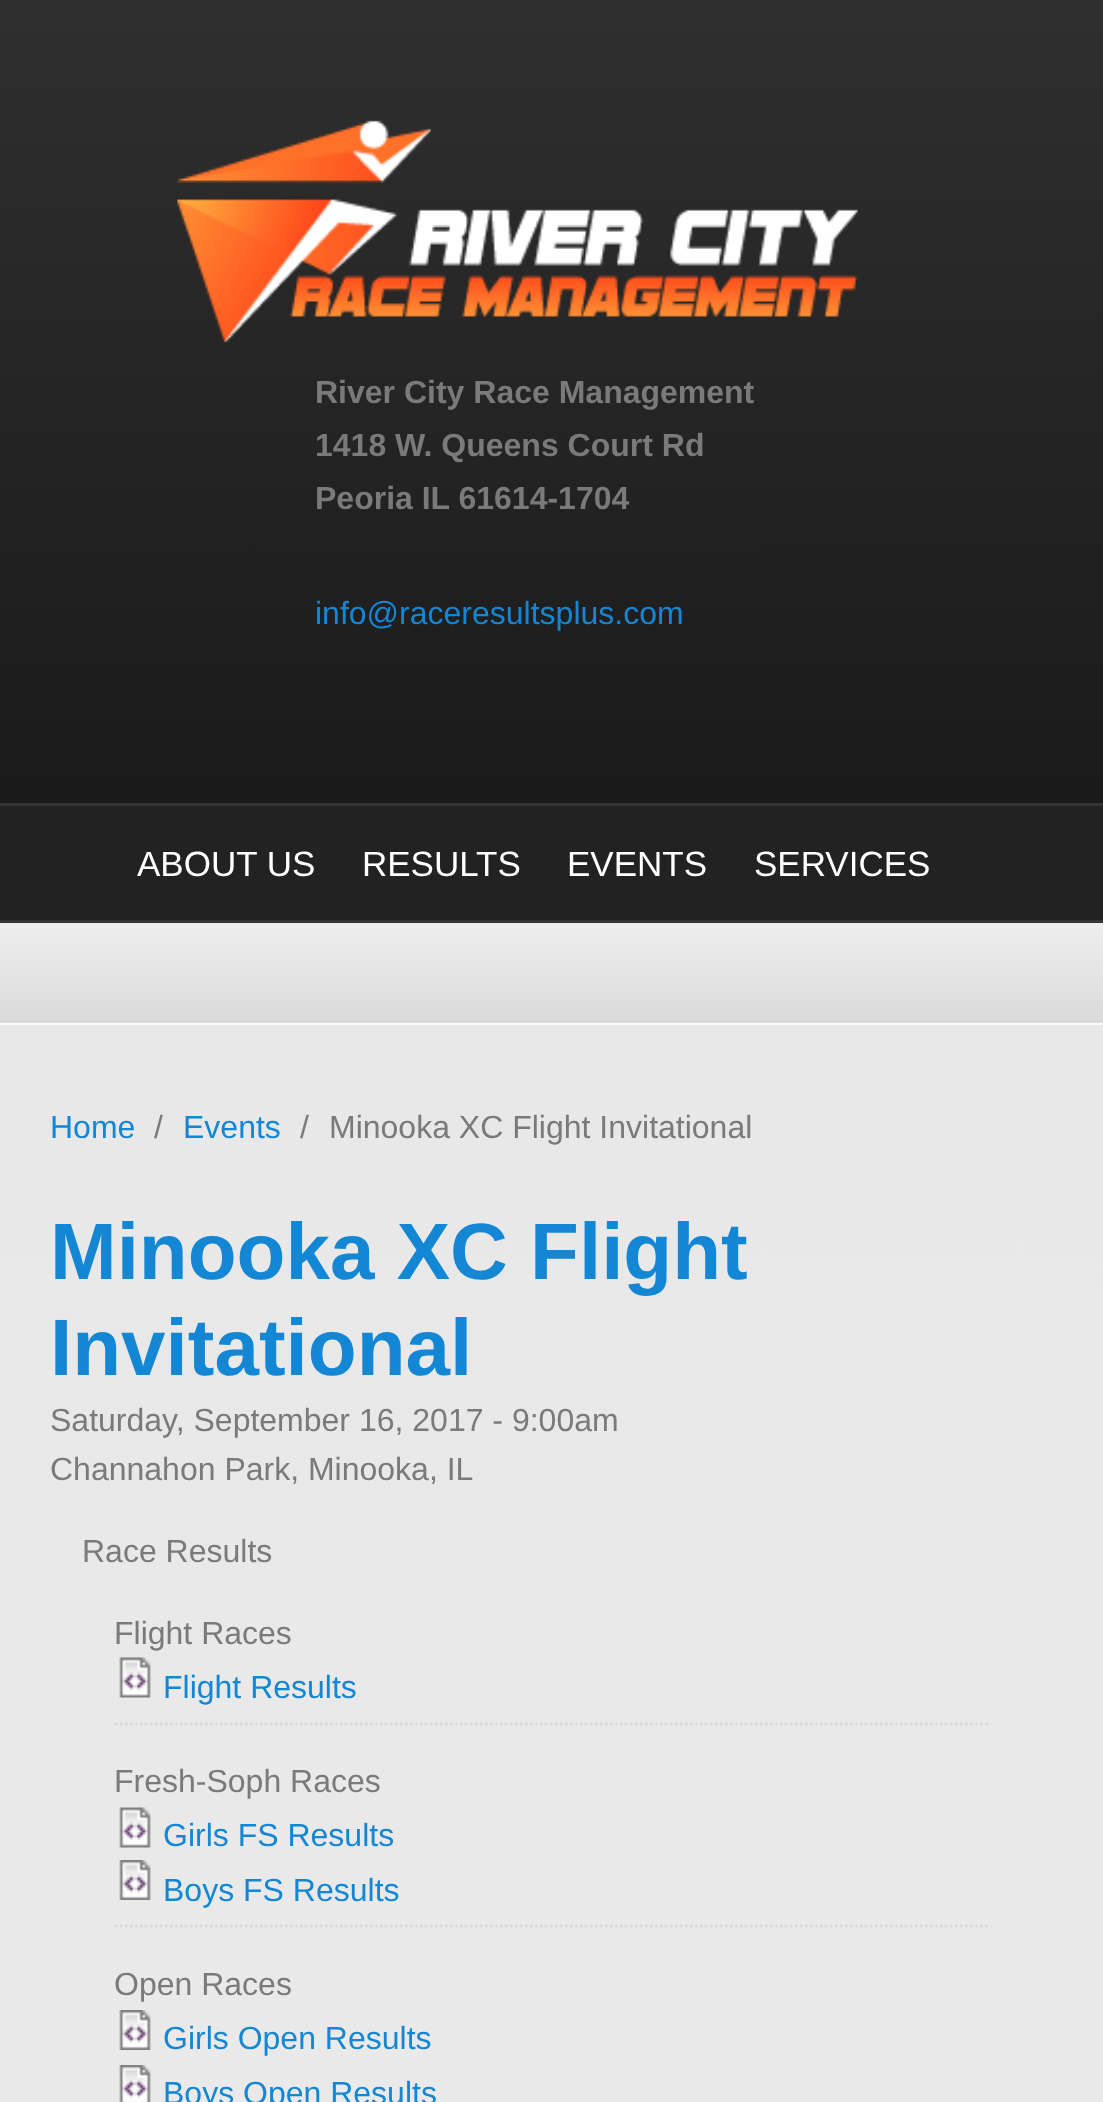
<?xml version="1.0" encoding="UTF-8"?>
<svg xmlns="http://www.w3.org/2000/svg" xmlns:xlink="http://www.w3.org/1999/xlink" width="1103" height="2102">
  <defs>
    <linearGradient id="g1" gradientUnits="userSpaceOnUse" x1="552" y1="0" x2="553" y2="803"><stop offset="0" stop-color="#2f2f2f" /><stop offset="1" stop-color="#1b1a1a" /></linearGradient>
    <linearGradient id="g2" gradientUnits="userSpaceOnUse" x1="553" y1="923" x2="553" y2="1023"><stop offset="0" stop-color="#efeeee" /><stop offset="1" stop-color="#dadada" /></linearGradient>
    <linearGradient id="g3" gradientUnits="userSpaceOnUse" x1="552" y1="1025" x2="553" y2="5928"><stop offset="0" stop-color="#e8e8e8" /><stop offset="1" stop-color="#efefef" /></linearGradient>
  </defs>
  <rect width="100%" height="100%" fill="#ffffff" />
  <rect width="1103" height="803" fill="url(#g1)" />
  <image x="177" y="120" width="681" height="223" xlink:href="image1.png" />
  <rect y="806" width="1103" height="114" fill="#222222" />
  <rect y="803" width="1103" height="3" fill="#353535" />
  <rect y="920" width="1103" height="3" fill="#353535" />
  <rect y="923" width="1103" height="100" fill="url(#g2)" />
  <rect y="1023" width="1103" height="2" fill="#fcfcfc" />
  <rect y="1025" width="1103" height="1077" fill="url(#g3)" />
  <path d="M 115 1724 h 875" fill="none" stroke="#d3d7d9" stroke-width="2.5" stroke-dasharray="2.5 2.5" />
  <image x="119" y="1657" width="32" height="41" xlink:href="image2.png" />
  <path d="M 115 1926 h 875" fill="none" stroke="#d3d7d9" stroke-width="2.5" stroke-dasharray="2.5 2.5" />
  <image x="119" y="1807" width="32" height="41" xlink:href="image2.png" />
  <image x="119" y="1860" width="32" height="40" xlink:href="image3.png" />
  <image x="119" y="2010" width="32" height="40" xlink:href="image3.png" />
  <image x="119" y="2065" width="32" height="37" xlink:href="image4.png" />
  <text x="315" y="403" style="font-family: Liberation Sans; font-size: 32px; font-weight: bold; fill: #7a7a7a">River City Race Management</text>
  <text x="315" y="456" style="font-family: Liberation Sans; font-size: 32px; font-weight: bold; fill: #7a7a7a">1418 W. Queens Court Rd</text>
  <text x="315" y="509" style="font-family: Liberation Sans; font-size: 32px; font-weight: bold; fill: #7a7a7a">Peoria IL 61614-1704</text>
  <text x="315" y="624" style="font-family: Liberation Sans; font-size: 32px; fill: #1487d4">info@raceresultsplus.com</text>
  <text x="137" y="876" style="font-family: Liberation Sans; font-size: 35px; fill: #ffffff">ABOUT US</text>
  <text x="362" y="876" style="font-family: Liberation Sans; font-size: 35px; fill: #ffffff">RESULTS</text>
  <text x="567" y="876" style="font-family: Liberation Sans; font-size: 35px; fill: #ffffff">EVENTS</text>
  <text x="754" y="876" style="font-family: Liberation Sans; font-size: 35px; fill: #ffffff">SERVICES</text>
  <text x="50" y="1138" style="font-family: Liberation Sans; font-size: 32px; fill: #1487d4">Home</text>
  <text x="154" y="1138" style="font-family: Liberation Sans; font-size: 32px; fill: #7a7a7a">/</text>
  <text x="183" y="1138" style="font-family: Liberation Sans; font-size: 32px; fill: #1487d4">Events</text>
  <text x="300" y="1138" style="font-family: Liberation Sans; font-size: 32px; fill: #7a7a7a">/</text>
  <text x="329" y="1138" style="font-family: Liberation Sans; font-size: 32px; fill: #7a7a7a">Minooka XC Flight Invitational</text>
  <text x="50" y="1279" style="font-family: Liberation Sans; font-size: 80px; font-weight: bold; fill: #1487d4">Minooka XC Flight</text>
  <text x="50" y="1375" style="font-family: Liberation Sans; font-size: 80px; font-weight: bold; fill: #1487d4">Invitational</text>
  <text x="50" y="1431" style="font-family: Liberation Sans; font-size: 32px; fill: #7a7a7a">Saturday, September 16, 2017 - 9:00am</text>
  <text x="50" y="1480" style="font-family: Liberation Sans; font-size: 32px; fill: #7a7a7a">Channahon Park, Minooka, IL</text>
  <text x="82" y="1562" style="font-family: Liberation Sans; font-size: 32px; fill: #7a7a7a">Race Results</text>
  <text x="114" y="1644" style="font-family: Liberation Sans; font-size: 32px; fill: #7a7a7a">Flight Races</text>
  <text x="163" y="1698" style="font-family: Liberation Sans; font-size: 32px; fill: #1487d4">Flight Results</text>
  <text x="114" y="1792" style="font-family: Liberation Sans; font-size: 32px; fill: #7a7a7a">Fresh-Soph Races</text>
  <text x="163" y="1846" style="font-family: Liberation Sans; font-size: 32px; fill: #1487d4">Girls FS Results</text>
  <text x="163" y="1901" style="font-family: Liberation Sans; font-size: 32px; fill: #1487d4">Boys FS Results</text>
  <text x="114" y="1995" style="font-family: Liberation Sans; font-size: 32px; fill: #7a7a7a">Open Races</text>
  <text x="163" y="2049" style="font-family: Liberation Sans; font-size: 32px; fill: #1487d4">Girls Open Results</text>
  <text x="163" y="2104" style="font-family: Liberation Sans; font-size: 32px; fill: #1487d4">Boys Open Results</text>
</svg>
